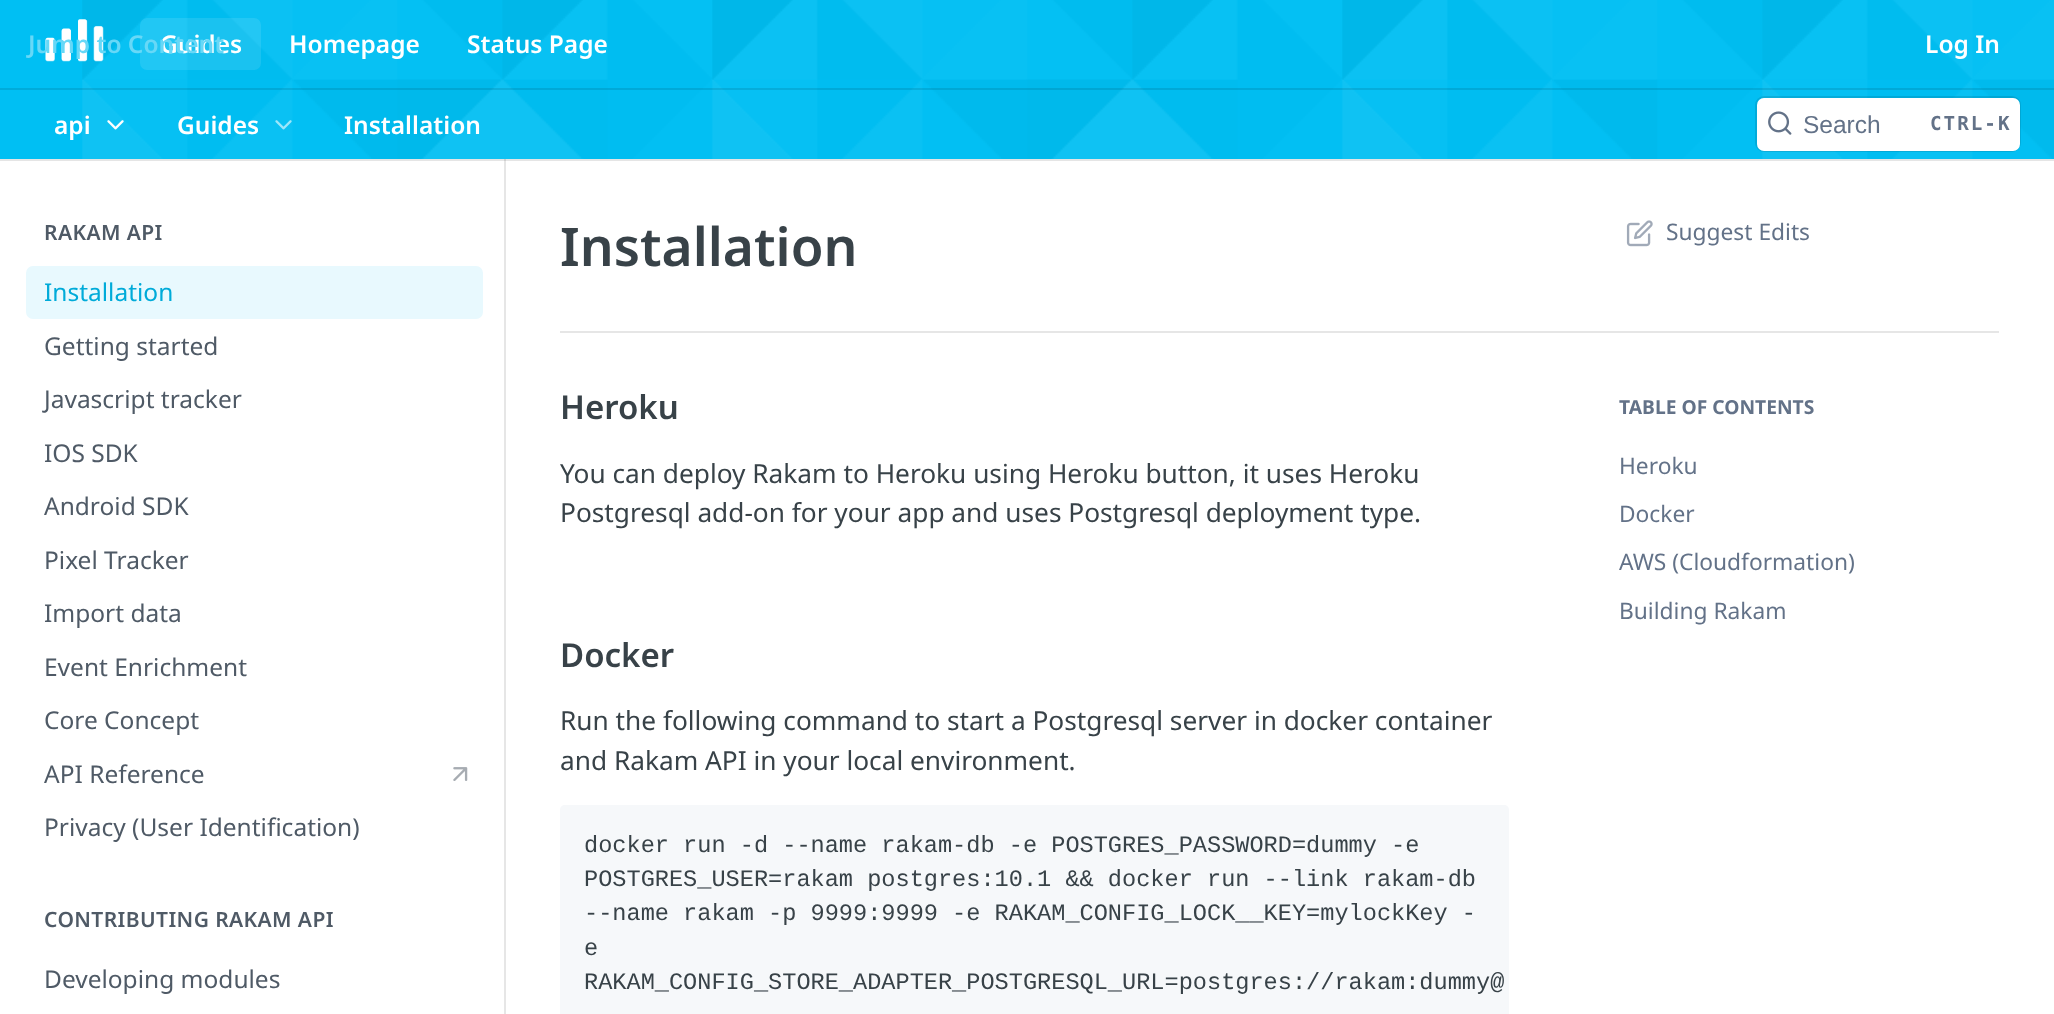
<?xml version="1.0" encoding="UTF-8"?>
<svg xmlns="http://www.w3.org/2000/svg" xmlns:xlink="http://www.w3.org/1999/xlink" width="2054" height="1014">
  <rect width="100%" height="100%" fill="#ffffff" />
  <path d="M 2 159 h 502 v 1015 h 2 v -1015 z" fill="#e6e6e6" />
  <path d="M 0 159 v 2 h 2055 v -159 h -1 v 157 z" fill="#000000" fill-opacity="0.1" />
  <rect width="2054" height="159" fill="#00bff3" />
  <image x="82" y="0" width="1972" height="159" xlink:href="image1.png" />
  <rect y="88" width="2054" height="2" fill="#000000" fill-opacity="0.1" />
  <image x="45" y="19" width="59" height="43" xlink:href="image2.png" />
  <rect x="140" y="18" width="121" height="52" rx="7" fill="#ffffff" fill-opacity="0.1" />
  <image x="107" y="120" width="17" height="10" xlink:href="image3.png" />
  <image x="275" y="120" width="17" height="10" xlink:href="image4.png" />
  <rect x="1756" y="97" width="264" height="54" rx="8" fill="none" stroke="#000000" stroke-opacity="0.1" stroke-width="2" />
  <rect x="1757" y="98" width="263" height="53" rx="7" fill="#ffffff" />
  <image x="1768" y="111" width="24" height="24" xlink:href="image5.png" />
  <rect x="26" y="266" width="457" height="53" rx="7" fill="#e8f9fe" />
  <image x="453" y="767" width="15" height="14" xlink:href="image6.png" />
  <rect x="560" y="331" width="1439" height="2" fill="#e6e6e6" />
  <image x="1626" y="220" width="27" height="27" xlink:href="image7.png" />
  <path d="M 565 805 h 939 c 3 0 5 2 5 5 v 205 h -949 v -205 c 0 -3 2 -5 5 -5 z" fill="#f6f8fa" />
  <text x="160" y="53" style="font-family: Noto Sans; font-size: 24.5px; font-weight: 600; fill: #ffffff">Guides</text>
  <text x="28" y="53" style="font-family: Noto Sans; font-size: 24.5px; font-weight: 600; fill: #67d8f7">Jump to Content</text>
  <text x="289" y="53" style="font-family: Noto Sans; font-size: 24.5px; font-weight: 600; fill: #ffffff">Homepage</text>
  <text x="467" y="53" style="font-family: Noto Sans; font-size: 24.5px; font-weight: 600; fill: #ffffff">Status Page</text>
  <text x="1925" y="53" style="font-family: Noto Sans; font-size: 24.5px; font-weight: 600; fill: #ffffff">Log In</text>
  <text x="54" y="134" style="font-family: Noto Sans; font-size: 24.5px; font-weight: 600; fill: #ffffff">api</text>
  <text x="177" y="134" style="font-family: Noto Sans; font-size: 24.5px; font-weight: 600; fill: #ffffff">Guides</text>
  <text x="344" y="134" style="font-family: Noto Sans; font-size: 24.5px; font-weight: 600; fill: #ffffff">Installation</text>
  <text x="1803" y="133" style="font-family: Liberation Sans; font-size: 24.5px; fill: #637288">Search</text>
  <text x="1930" y="130" style="font-family: DejaVu Sans Mono; font-size: 19.25px; font-weight: bold; letter-spacing: 2px; fill: #637288">CTRL-K</text>
  <text x="44" y="240" style="font-family: Noto Sans; font-size: 21px; font-weight: 600; letter-spacing: 0.4px; fill: #4f5a66">RAKAM API</text>
  <text x="44" y="301" style="font-family: Noto Sans; font-size: 24.5px; fill: #00abd9">Installation</text>
  <text x="44" y="355" style="font-family: Noto Sans; font-size: 24.5px; fill: #4f5a66">Getting started</text>
  <text x="44" y="408" style="font-family: Noto Sans; font-size: 24.5px; fill: #4f5a66">Javascript tracker</text>
  <text x="44" y="462" style="font-family: Noto Sans; font-size: 24.5px; fill: #4f5a66">IOS SDK</text>
  <text x="44" y="515" style="font-family: Noto Sans; font-size: 24.5px; fill: #4f5a66">Android SDK</text>
  <text x="44" y="569" style="font-family: Noto Sans; font-size: 24.5px; fill: #4f5a66">Pixel Tracker</text>
  <text x="44" y="622" style="font-family: Noto Sans; font-size: 24.5px; fill: #4f5a66">Import data</text>
  <text x="44" y="676" style="font-family: Noto Sans; font-size: 24.5px; fill: #4f5a66">Event Enrichment</text>
  <text x="44" y="729" style="font-family: Noto Sans; font-size: 24.5px; fill: #4f5a66">Core Concept</text>
  <text x="44" y="783" style="font-family: Noto Sans; font-size: 24.5px; fill: #4f5a66">API Reference</text>
  <text x="44" y="836" style="font-family: Noto Sans; font-size: 24.5px; fill: #4f5a66">Privacy (User Identification)</text>
  <text x="44" y="927" style="font-family: Noto Sans; font-size: 21px; font-weight: 600; letter-spacing: 0.4px; fill: #4f5a66">CONTRIBUTING RAKAM API</text>
  <text x="44" y="988" style="font-family: Noto Sans; font-size: 24.5px; fill: #4f5a66">Developing modules</text>
  <text x="560" y="266" style="font-family: Noto Sans; font-size: 53.25px; font-weight: 600; fill: #384248">Installation</text>
  <text x="1666" y="240" style="font-family: Noto Sans; font-size: 22.75px; fill: #637288">Suggest Edits</text>
  <text x="560" y="419" style="font-family: Noto Sans; font-size: 33px; font-weight: 600; fill: #384248">Heroku</text>
  <text x="560" y="483" style="font-family: Noto Sans; font-size: 26.25px; fill: #384248">You can deploy Rakam to Heroku using Heroku button, it uses Heroku</text>
  <text x="560" y="522" style="font-family: Noto Sans; font-size: 26.25px; fill: #384248">Postgresql add-on for your app and uses Postgresql deployment type.</text>
  <text x="560" y="667" style="font-family: Noto Sans; font-size: 33px; font-weight: 600; fill: #384248">Docker</text>
  <text x="560" y="730" style="font-family: Noto Sans; font-size: 26.25px; fill: #384248">Run the following command to start a Postgresql server in docker container</text>
  <text x="560" y="770" style="font-family: Noto Sans; font-size: 26.25px; fill: #384248">and Rakam API in your local environment.</text>
  <text x="584" y="852" style="font-family: Liberation Mono; font-size: 23.6px; fill: #384248">docker run -d --name rakam-db -e POSTGRES_PASSWORD=dummy -e</text>
  <text x="584" y="886" style="font-family: Liberation Mono; font-size: 23.6px; fill: #384248">POSTGRES_USER=rakam postgres:10.1 &amp;&amp; docker run --link rakam-db</text>
  <text x="584" y="920" style="font-family: Liberation Mono; font-size: 23.6px; fill: #384248">--name rakam -p 9999:9999 -e RAKAM_CONFIG_LOCK__KEY=mylockKey -</text>
  <text x="584" y="955" style="font-family: Liberation Mono; font-size: 23.6px; fill: #384248">e</text>
  <text x="584" y="989" style="font-family: Liberation Mono; font-size: 23.6px; fill: #384248">RAKAM_CONFIG_STORE_ADAPTER_POSTGRESQL_URL=postgres://rakam:dummy@</text>
  <text x="1619" y="414" style="font-family: Noto Sans; font-size: 19.25px; font-weight: bold; fill: #637288">TABLE OF CONTENTS</text>
  <text x="1619" y="474" style="font-family: Noto Sans; font-size: 22.75px; fill: #637288">Heroku</text>
  <text x="1619" y="522" style="font-family: Noto Sans; font-size: 22.75px; fill: #637288">Docker</text>
  <text x="1619" y="570" style="font-family: Noto Sans; font-size: 22.75px; fill: #637288">AWS (Cloudformation)</text>
  <text x="1619" y="619" style="font-family: Noto Sans; font-size: 22.75px; fill: #637288">Building Rakam</text>
</svg>
